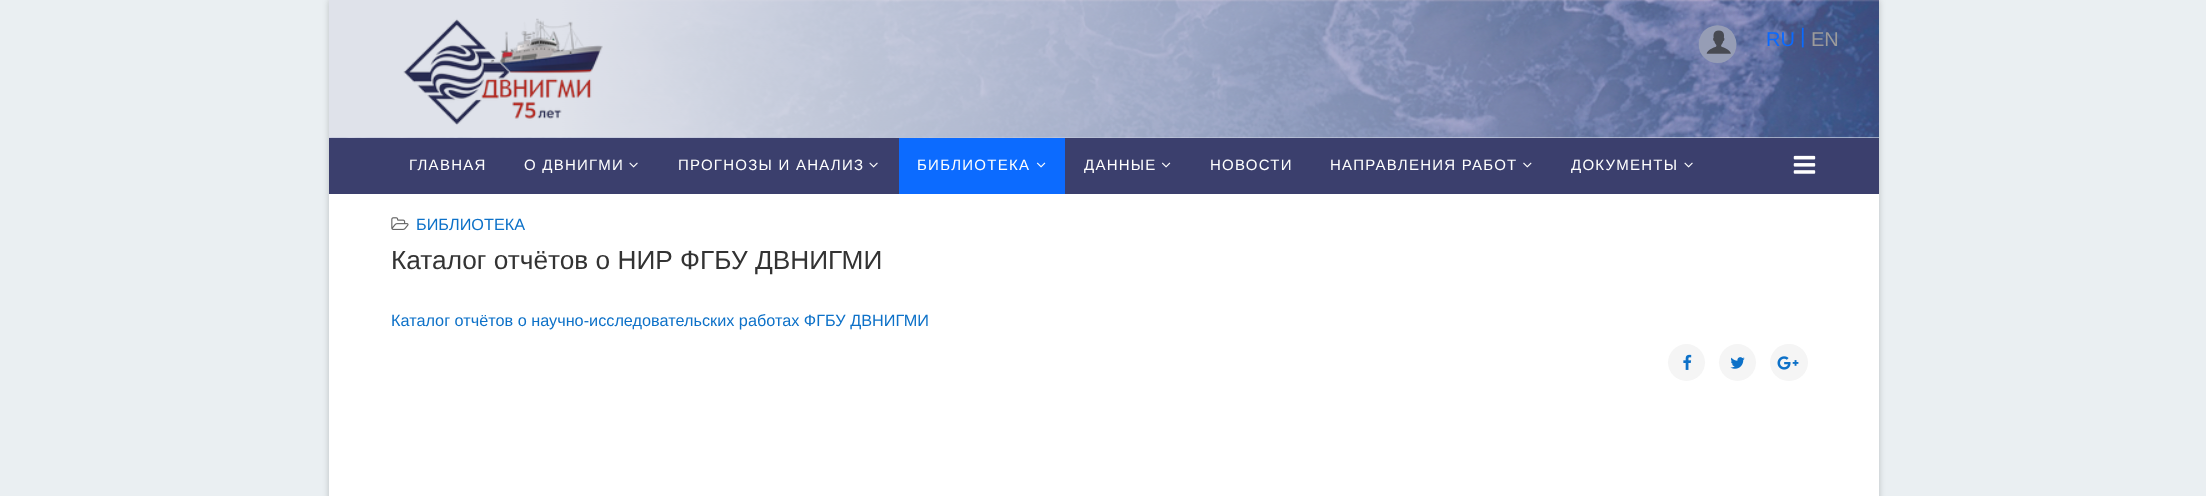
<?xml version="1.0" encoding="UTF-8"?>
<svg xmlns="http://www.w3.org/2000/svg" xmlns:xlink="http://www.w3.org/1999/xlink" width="2206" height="496">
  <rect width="100%" height="100%" fill="#eaeff2" />
  <rect x="329" width="1550" height="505" fill="#000000" fill-opacity="0.2" filter="blur(3px)" />
  <rect x="329" y="137" width="1550" height="359" fill="#ffffff" />
  <image x="329" y="0" width="1550" height="138" xlink:href="image1.png" />
  <image x="403" y="18" width="200" height="107" xlink:href="image2.png" />
  <rect x="329" y="138" width="1550" height="56" fill="#3b3f6d" />
  <image x="629" y="162" width="9" height="6" xlink:href="image4.png" />
  <image x="869" y="162" width="9" height="6" xlink:href="image4.png" />
  <rect x="899" y="138" width="166" height="56" fill="#0c6bff" />
  <image x="1036" y="162" width="10" height="6" xlink:href="image5.png" />
  <image x="1161" y="162" width="10" height="6" xlink:href="image6.png" />
  <image x="1523" y="162" width="9" height="6" xlink:href="image7.png" />
  <image x="1684" y="162" width="9" height="6" xlink:href="image4.png" />
  <image x="1793" y="155" width="23" height="19" xlink:href="image8.png" />
  <image x="391" y="217" width="18" height="13" xlink:href="image9.png" />
  <circle cx="1686.5" cy="362.5" r="18.5" fill="#f5f5f5" />
  <image x="1683" y="354" width="9" height="16" xlink:href="image10.png" />
  <circle cx="1737.5" cy="362.5" r="18.5" fill="#f5f5f5" />
  <image x="1730" y="357" width="15" height="12" xlink:href="image11.png" />
  <rect x="1770" y="344" width="38" height="37" rx="18.5" fill="#f5f5f5" />
  <image x="1777" y="356" width="22" height="14" xlink:href="image12.png" />
  <text x="1691" y="69" style="font-family: Liberation Sans; font-size: 88px; fill: #969db5">●</text>
  <image x="1706" y="30" width="25" height="24" xlink:href="image3.png" />
  <text x="1766" y="46" style="font-family: Liberation Sans; font-size: 20px; fill: #0a6aff">RU</text>
  <text x="1800" y="43" style="font-family: Liberation Sans; font-size: 21px; fill: #0a6aff">|</text>
  <text x="1811" y="46" style="font-family: Liberation Sans; font-size: 20px; fill: #9c9b9b">EN</text>
  <text x="409" y="170" style="font-family: Liberation Sans; font-size: 15px; letter-spacing: 1.25px; fill: #ffffff">ГЛАВНАЯ</text>
  <text x="524" y="170" style="font-family: Liberation Sans; font-size: 15px; letter-spacing: 1.25px; fill: #ffffff">О ДВНИГМИ</text>
  <text x="678" y="170" style="font-family: Liberation Sans; font-size: 15px; letter-spacing: 1.25px; fill: #ffffff">ПРОГНОЗЫ И АНАЛИЗ</text>
  <text x="917" y="170" style="font-family: Liberation Sans; font-size: 15px; letter-spacing: 1.25px; fill: #ffffff">БИБЛИОТЕКА</text>
  <text x="1084" y="170" style="font-family: Liberation Sans; font-size: 15px; letter-spacing: 1.25px; fill: #ffffff">ДАННЫЕ</text>
  <text x="1210" y="170" style="font-family: Liberation Sans; font-size: 15px; letter-spacing: 1.25px; fill: #ffffff">НОВОСТИ</text>
  <text x="1330" y="170" style="font-family: Liberation Sans; font-size: 15px; letter-spacing: 1.25px; fill: #ffffff">НАПРАВЛЕНИЯ РАБОТ</text>
  <text x="1571" y="170" style="font-family: Liberation Sans; font-size: 15px; letter-spacing: 1.25px; fill: #ffffff">ДОКУМЕНТЫ</text>
  <text x="416" y="230" style="font-family: Liberation Sans; font-size: 16.25px; fill: #0d71c8">БИБЛИОТЕКА</text>
  <text x="391" y="269" style="font-family: Liberation Sans; font-size: 26.25px; fill: #333333">Каталог отчётов о НИР ФГБУ ДВНИГМИ</text>
  <text x="391" y="326" style="font-family: Liberation Sans; font-size: 16.25px; fill: #0d71c8">Каталог отчётов о научно-исследовательских работах ФГБУ ДВНИГМИ</text>
</svg>
